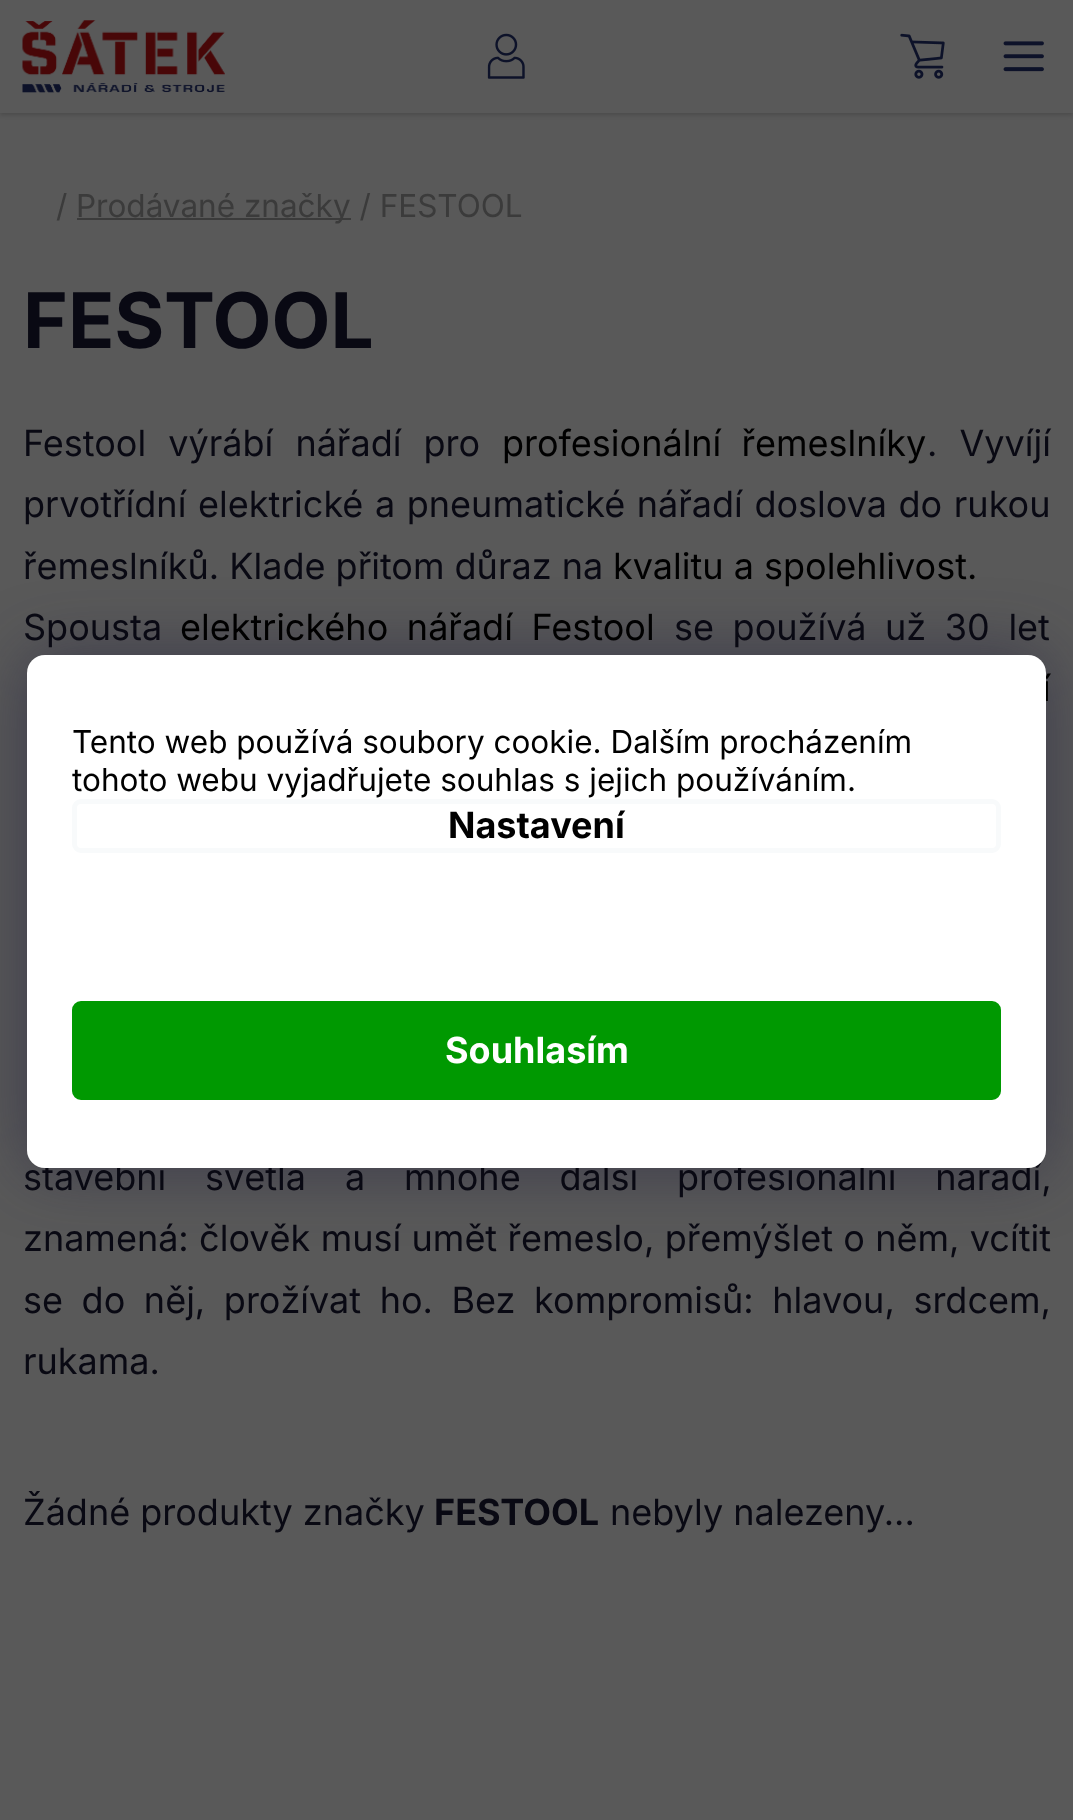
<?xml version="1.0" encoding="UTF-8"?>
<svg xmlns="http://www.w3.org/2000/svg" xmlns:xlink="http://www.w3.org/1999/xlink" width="1073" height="1820">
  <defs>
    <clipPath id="clip1"><path d="M 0 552 h 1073 v 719 h -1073 z m 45 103 h 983 c 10 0 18 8 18 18 v 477 c 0 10 -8 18 -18 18 h -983 c -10 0 -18 -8 -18 -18 v -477 c 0 -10 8 -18 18 -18 z" clip-rule="evenodd" /></clipPath>
  </defs>
  <rect width="100%" height="100%" fill="#595959" />
  <rect y="2" width="1073" height="113" fill="#000000" fill-opacity="0.16" filter="blur(2px)" />
  <rect width="1073" height="113" fill="#595959" />
  <image x="22" y="20" width="203" height="73" xlink:href="image1.png" />
  <image x="487" y="33" width="38" height="46" xlink:href="image2.png" />
  <image x="900" y="33" width="45" height="46" xlink:href="image3.png" />
  <image x="1003" y="41" width="41" height="31" xlink:href="image4.png" />
  <rect x="77" y="218" width="274" height="2" fill="#3b3b3b" />
  <g clip-path="url(#clip1)">
    <rect x="27" y="655" width="1019" height="513" rx="18" fill="#1b1939" fill-opacity="0.5" filter="blur(34px)" />
  </g>
  <text x="56" y="217" style="font-family: Inter; font-size: 31.5px; fill: #3b3b3b">/</text>
  <text x="76" y="217" style="font-family: Inter; font-size: 31.5px; fill: #3b3b3b">Prodávané značky / FESTOOL</text>
  <text x="23" y="348" style="font-family: Inter; font-size: 76.5px; font-weight: bold; fill: #090913">FESTOOL</text>
  <text x="23" y="456" word-spacing="12" style="font-family: Inter; font-size: 36px; fill: #090913">Festool výrábí nářadí pro</text>
  <text x="502" y="456" word-spacing="10" style="font-family: Inter; font-size: 36px; fill: #000000">profesionální řemeslníky</text>
  <text x="927" y="456" word-spacing="12" style="font-family: Inter; font-size: 36px; fill: #090913">. Vyvíjí</text>
  <text x="23" y="517" word-spacing="1.5" style="font-family: Inter; font-size: 36px; fill: #090913">prvotřídní elektrické a pneumatické nářadí doslova do rukou</text>
  <text x="23" y="579" style="font-family: Inter; font-size: 36px; fill: #090913">řemeslníků. Klade přitom důraz na</text>
  <text x="613" y="579" style="font-family: Inter; font-size: 36px; fill: #000000">kvalitu a spolehlivost.</text>
  <text x="23" y="640" style="font-family: Inter; font-size: 36px; fill: #090913">Spousta</text>
  <text x="180" y="640" word-spacing="8.5" style="font-family: Inter; font-size: 36px; fill: #000000">elektrického nářadí Festool</text>
  <text x="674" y="640" word-spacing="8.5" style="font-family: Inter; font-size: 36px; fill: #090913">se používá už 30 let</text>
  <text x="1042" y="701" word-spacing="6" style="font-family: Inter; font-size: 36px; fill: #000000">í</text>
  <text x="23" y="1190" word-spacing="28.75" style="font-family: Inter; font-size: 36px; fill: #090913">stavební světla a mnohé další profesionální nářadí,</text>
  <text x="23" y="1251" word-spacing="0.25" style="font-family: Inter; font-size: 36px; fill: #090913">znamená: člověk musí umět řemeslo, přemýšlet o něm, vcítit</text>
  <text x="23" y="1313" word-spacing="8.5" style="font-family: Inter; font-size: 36px; fill: #090913">se do něj, prožívat ho. Bez kompromisů: hlavou, srdcem,</text>
  <text x="23" y="1374" style="font-family: Inter; font-size: 36px; fill: #090913">rukama.</text>
  <text x="23" y="1525" style="font-family: Inter; font-size: 36px; fill: #090913">Žádné produkty značky</text>
  <text x="434" y="1525" style="font-family: Inter; font-size: 36px; font-weight: bold; fill: #090913">FESTOOL</text>
  <text x="610" y="1525" style="font-family: Inter; font-size: 36px; fill: #090913">nebyly nalezeny...</text>
  <rect x="27" y="655" width="1019" height="513" rx="18" fill="#ffffff" />
  <text x="72" y="753" style="font-family: Inter; font-size: 31.5px; fill: #000000">Tento web používá soubory cookie. Dalším procházením</text>
  <text x="72" y="791" style="font-family: Inter; font-size: 31.5px; fill: #000000">tohoto webu vyjadřujete souhlas s jejich používáním.</text>
  <rect x="74.5" y="801.5" width="924" height="49" rx="6.5" fill="none" stroke="#f8fafb" stroke-width="5" />
  <text x="448" y="838" style="font-family: Inter; font-size: 36px; font-weight: bold; fill: #000000">Nastavení</text>
  <rect x="74.5" y="1003.5" width="924" height="94" rx="6.5" fill="#009901" stroke="#009901" stroke-width="5" />
  <text x="445" y="1063" style="font-family: Inter; font-size: 36px; font-weight: bold; fill: #ffffff">Souhlasím</text>
</svg>
